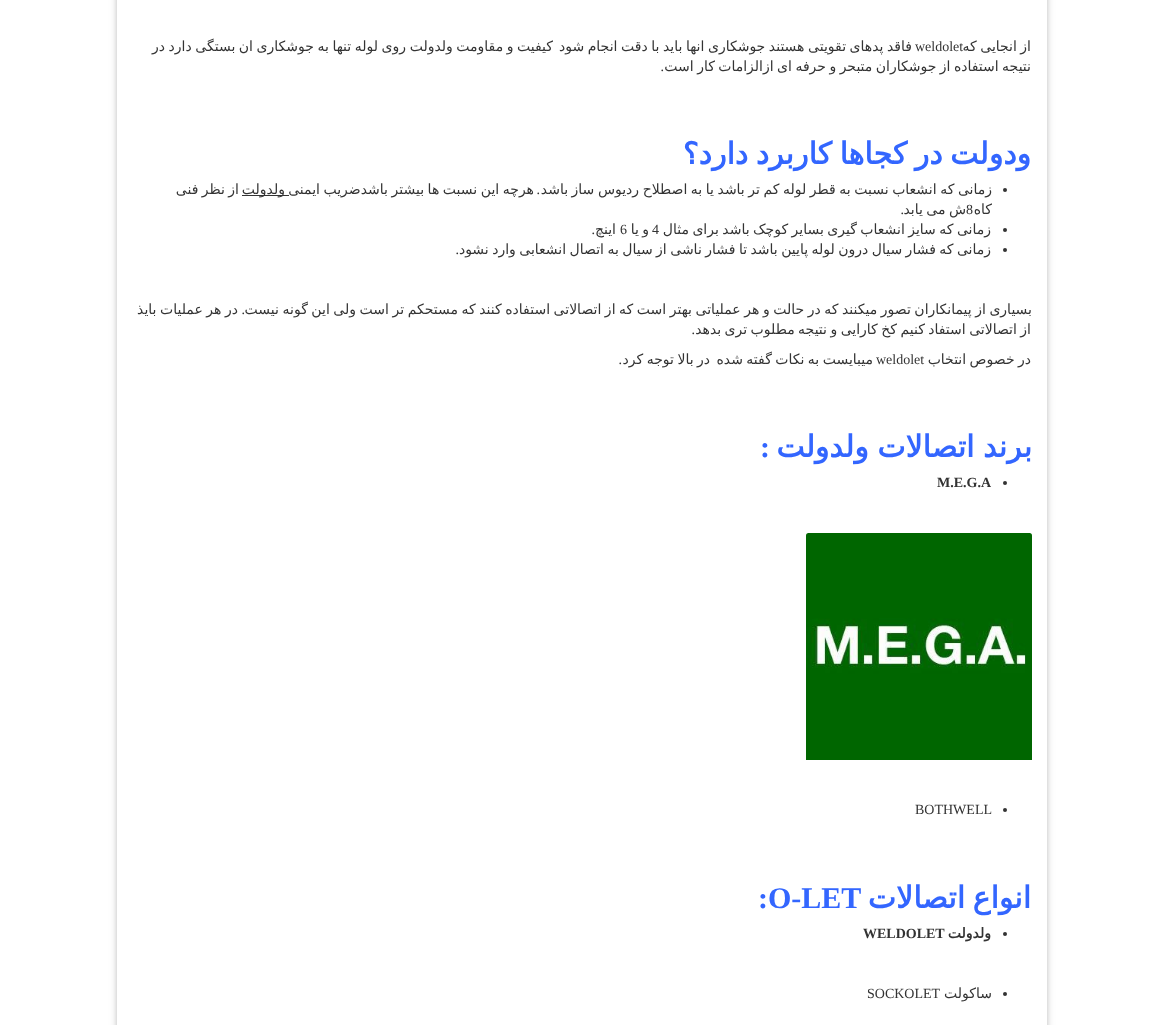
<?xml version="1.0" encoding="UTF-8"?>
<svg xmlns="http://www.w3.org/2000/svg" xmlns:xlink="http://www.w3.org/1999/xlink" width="1163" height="1025">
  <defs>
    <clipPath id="clip1"><path d="M 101 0 h 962 v 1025 h -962 z m 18.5 -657 h 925 c 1.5 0 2.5 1 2.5 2.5 v 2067 c 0 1.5 -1 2.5 -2.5 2.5 h -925 c -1.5 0 -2.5 -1 -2.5 -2.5 v -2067 c 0 -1.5 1 -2.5 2.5 -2.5 z" clip-rule="evenodd" /></clipPath>
    <clipPath id="clip2"><path d="M 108 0 h 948 v 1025 h -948 z m 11.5 -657 h 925 c 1.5 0 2.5 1 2.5 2.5 v 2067 c 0 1.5 -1 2.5 -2.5 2.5 h -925 c -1.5 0 -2.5 -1 -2.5 -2.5 v -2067 c 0 -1.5 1 -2.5 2.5 -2.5 z" clip-rule="evenodd" /></clipPath>
  </defs>
  <rect width="100%" height="100%" fill="#ffffff" />
  <g clip-path="url(#clip1)">
    <rect x="117" y="-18" width="930" height="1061" rx="2.5" fill="#000000" fill-opacity="0.12" filter="blur(5px)" />
  </g>
  <g clip-path="url(#clip2)">
    <rect x="117" y="-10" width="930" height="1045" rx="2.5" fill="#000000" fill-opacity="0.16" filter="blur(2.5px)" />
  </g>
  <circle cx="1005" cy="190" r="2" fill="#333333" />
  <rect x="242" y="195" width="47" height="1" fill="#333333" />
  <circle cx="1005" cy="230" r="2" fill="#333333" />
  <circle cx="1005" cy="250" r="2" fill="#333333" />
  <circle cx="1005" cy="483" r="2" fill="#333333" />
  <image x="806" y="533" width="226" height="227" xlink:href="image1.png" />
  <circle cx="1005" cy="810" r="2" fill="#333333" />
  <circle cx="1005" cy="934" r="2" fill="#333333" />
  <circle cx="1005" cy="994" r="2" fill="#333333" />
  <text x="1031" y="51" word-spacing="-1" style="font-family: DejaVu Sans; font-size: 14px; direction: rtl; fill: #333333">از انجایی که</text>
  <text x="553" y="51" word-spacing="-0.9" style="font-family: DejaVu Sans; font-size: 14px; direction: rtl; fill: #333333">کیفیت و مقاومت ولدولت روی لوله تنها به جوشکاری ان بستگی دارد در</text>
  <text x="912" y="51" word-spacing="-0.9" style="font-family: DejaVu Sans; font-size: 14px; direction: rtl; fill: #333333">فاقد پدهای تقویتی هستند جوشکاری انها باید با دقت انجام شود</text>
  <text x="915" y="51" style="font-family: Liberation Serif; font-size: 14px; fill: #333333">weldolet</text>
  <text x="1031" y="71" word-spacing="-1" style="font-family: DejaVu Sans; font-size: 14px; direction: rtl; fill: #333333">نتیجه استفاده از جوشکاران متبحر و حرفه ای ازالزامات کار است</text>
  <text x="664" y="71" style="font-family: Liberation Serif; font-size: 14px; direction: rtl; fill: #333333">.</text>
  <text x="1031" y="164" word-spacing="-2" style="font-family: DejaVu Sans; font-size: 30px; font-weight: bold; direction: rtl; fill: #3366ff">ودولت در کجاها کاربرد دارد؟</text>
  <text x="992" y="194" word-spacing="-0.9" style="font-family: DejaVu Sans; font-size: 14px; direction: rtl; fill: #333333">زمانی که انشعاب نسبت به قطر لوله کم تر باشد یا به اصطلاح ردیوس ساز باشد</text>
  <text x="534" y="194" word-spacing="-0.9" style="font-family: DejaVu Sans; font-size: 14px; direction: rtl; fill: #333333">هرچه این نسبت ها بیشتر باشدضریب ایمنی</text>
  <text x="285" y="194" style="font-family: DejaVu Sans; font-size: 14px; direction: rtl; fill: #333333">ولدولت</text>
  <text x="239" y="194" word-spacing="-1" style="font-family: DejaVu Sans; font-size: 14px; direction: rtl; fill: #333333">از نظر فنی</text>
  <text x="540" y="194" style="font-family: Liberation Serif; font-size: 14px; direction: rtl; fill: #333333">.</text>
  <text x="992" y="214" style="font-family: DejaVu Sans; font-size: 14px; direction: rtl; fill: #333333">کاه</text>
  <text x="966" y="214" word-spacing="-1" style="font-family: DejaVu Sans; font-size: 14px; direction: rtl; fill: #333333">ش می یابد</text>
  <text x="966" y="214" style="font-family: Liberation Serif; font-size: 14px; fill: #333333">8</text>
  <text x="904" y="214" style="font-family: Liberation Serif; font-size: 14px; direction: rtl; fill: #333333">.</text>
  <text x="991" y="234" word-spacing="-1" style="font-family: DejaVu Sans; font-size: 14px; direction: rtl; fill: #333333">زمانی که سایز انشعاب گیری بسایر کوچک باشد برای مثال</text>
  <text x="652" y="234" style="font-family: Liberation Serif; font-size: 14px; fill: #333333">4</text>
  <text x="649" y="234" word-spacing="-1" style="font-family: DejaVu Sans; font-size: 14px; direction: rtl; fill: #333333">و یا</text>
  <text x="620" y="234" style="font-family: Liberation Serif; font-size: 14px; fill: #333333">6</text>
  <text x="616" y="234" style="font-family: DejaVu Sans; font-size: 14px; direction: rtl; fill: #333333">اینچ</text>
  <text x="595" y="234" style="font-family: Liberation Serif; font-size: 14px; direction: rtl; fill: #333333">.</text>
  <text x="991" y="254" word-spacing="-1" style="font-family: DejaVu Sans; font-size: 14px; direction: rtl; fill: #333333">زمانی که فشار سیال درون لوله پایین باشد تا فشار ناشی از سیال به اتصال انشعابی وارد نشود</text>
  <text x="459" y="254" style="font-family: Liberation Serif; font-size: 14px; direction: rtl; fill: #333333">.</text>
  <text x="1032" y="314" word-spacing="-0.9" style="font-family: DejaVu Sans; font-size: 14px; direction: rtl; fill: #333333">بسیاری از پیمانکاران تصور میکنند که در حالت و هر عملیاتی بهتر است که از اتصالاتی استفاده کنند که مستحکم تر است ولی این گونه نیست</text>
  <text x="245" y="314" style="font-family: Liberation Serif; font-size: 14px; direction: rtl; fill: #333333">.</text>
  <text x="238" y="314" word-spacing="-0.9" style="font-family: DejaVu Sans; font-size: 14px; direction: rtl; fill: #333333">در هر عملیات بایذ</text>
  <text x="1031" y="334" word-spacing="-1" style="font-family: DejaVu Sans; font-size: 14px; direction: rtl; fill: #333333">از اتصالاتی استفاد کنیم کخ کارایی و نتیجه مطلوب تری بدهد</text>
  <text x="695" y="334" style="font-family: Liberation Serif; font-size: 14px; direction: rtl; fill: #333333">.</text>
  <text x="1031" y="364" word-spacing="-1" style="font-family: DejaVu Sans; font-size: 14px; direction: rtl; fill: #333333">در خصوص انتخاب</text>
  <text x="876" y="364" style="font-family: Liberation Serif; font-size: 14px; fill: #333333">weldolet</text>
  <text x="873" y="364" word-spacing="-1" style="font-family: DejaVu Sans; font-size: 14px; direction: rtl; fill: #333333">میبایست به نکات گفته شده</text>
  <text x="710" y="364" word-spacing="-1" style="font-family: DejaVu Sans; font-size: 14px; direction: rtl; fill: #333333">در بالا توجه کرد</text>
  <text x="622" y="364" style="font-family: Liberation Serif; font-size: 14px; direction: rtl; fill: #333333">.</text>
  <text x="1032" y="457" word-spacing="-1" style="font-family: DejaVu Sans; font-size: 30px; font-weight: bold; direction: rtl; fill: #3366ff">برند اتصالات ولدولت</text>
  <text x="770" y="457" style="font-family: Liberation Serif; font-size: 30px; font-weight: bold; direction: rtl; fill: #3366ff">:</text>
  <text x="937" y="487" style="font-family: Liberation Serif; font-size: 14px; font-weight: bold; fill: #333333">M.E.G.A</text>
  <text x="915" y="814" style="font-family: Liberation Serif; font-size: 14px; fill: #333333">BOTHWELL</text>
  <text x="1031" y="908" word-spacing="-2" style="font-family: DejaVu Sans; font-size: 30px; font-weight: bold; direction: rtl; fill: #3366ff">انواع اتصالات</text>
  <text x="758" y="908" style="font-family: Liberation Serif; font-size: 30px; font-weight: bold; fill: #3366ff">:O-LET</text>
  <text x="991" y="938" style="font-family: DejaVu Sans; font-size: 14px; font-weight: bold; direction: rtl; fill: #333333">ولدولت</text>
  <text x="863" y="938" style="font-family: Liberation Serif; font-size: 14px; font-weight: bold; fill: #333333">WELDOLET</text>
  <text x="992" y="998" style="font-family: DejaVu Sans; font-size: 14px; direction: rtl; fill: #333333">ساکولت</text>
  <text x="867" y="998" style="font-family: Liberation Serif; font-size: 14px; fill: #333333">SOCKOLET</text>
</svg>
